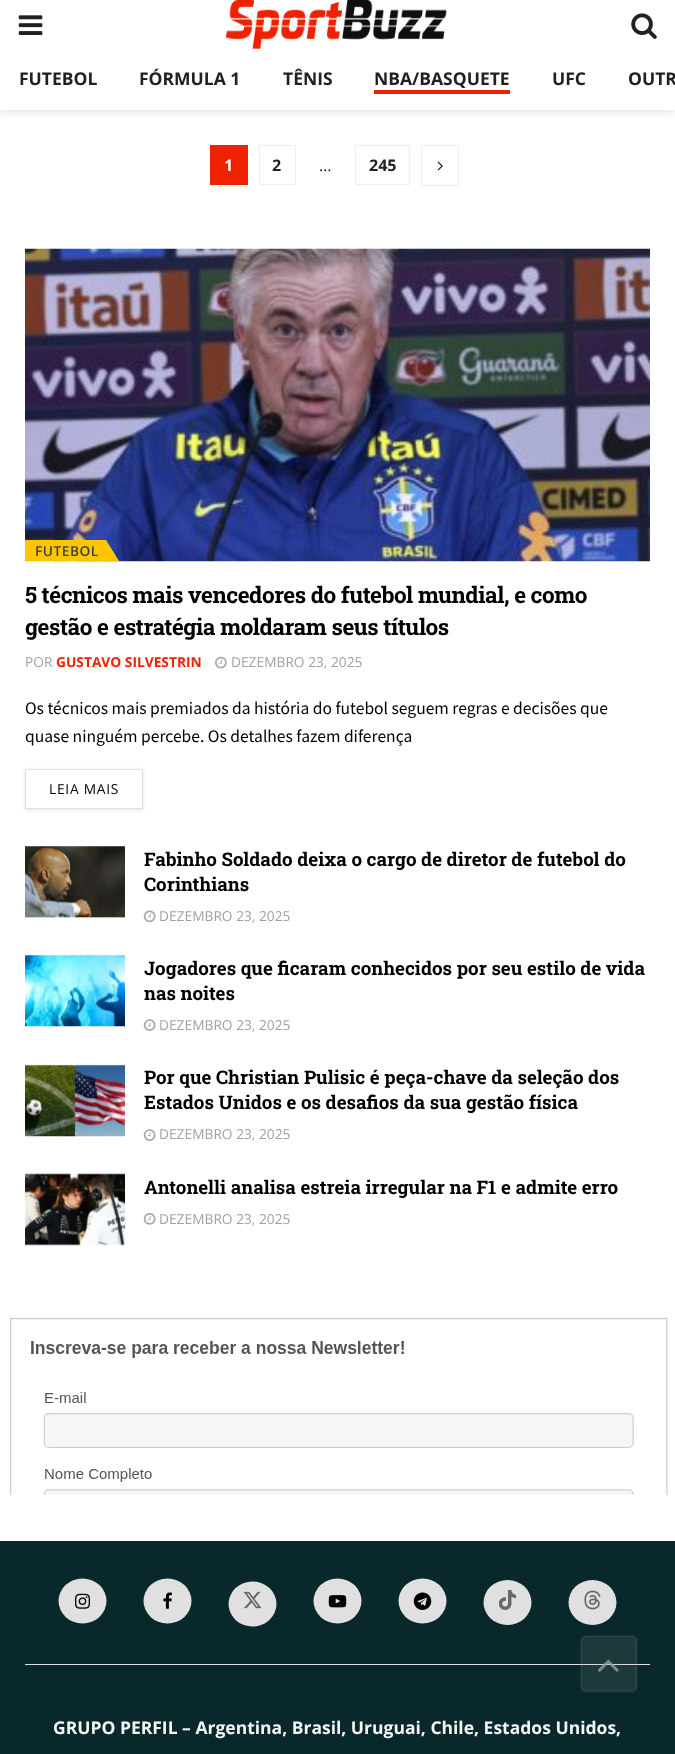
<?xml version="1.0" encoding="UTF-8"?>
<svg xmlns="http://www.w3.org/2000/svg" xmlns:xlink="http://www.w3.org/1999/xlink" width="675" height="1754">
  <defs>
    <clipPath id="clip1"><path d="M 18 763 h 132 v 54 h -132 z m 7 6 h 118 v 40 h -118 z" clip-rule="evenodd" /></clipPath>
  </defs>
  <rect width="100%" height="100%" fill="#09282c" />
  <rect y="110" width="675" height="1431" fill="#ffffff" />
  <rect y="3" width="675" height="110" fill="#000000" fill-opacity="0.1" filter="blur(4px)" />
  <rect width="675" height="110" fill="#ffffff" />
  <image x="18" y="15" width="25" height="20" xlink:href="image1.png" />
  <image x="226" y="0" width="221" height="49" xlink:href="image2.png" />
  <image x="631" y="13" width="26" height="26" xlink:href="image3.png" />
  <rect x="374" y="90" width="136" height="4" fill="#ee2201" />
  <rect x="210" y="145" width="38" height="40" fill="#ee2201" />
  <rect x="259.5" y="145.5" width="36" height="39" fill="none" stroke="#eeeeee" />
  <rect x="355.5" y="145.5" width="54" height="39" fill="none" stroke="#eeeeee" />
  <rect x="421.5" y="145.5" width="37" height="40" fill="none" stroke="#eeeeee" />
  <image x="437" y="161" width="6" height="10" xlink:href="image4.png" />
  <image x="25" y="248" width="625" height="314" xlink:href="image5.png" />
  <rect x="25" y="540" width="81" height="21" fill="#ffc600" />
  <path d="M 119 561 h -13 v -21 z" fill="#ffc600" />
  <image x="215" y="656" width="12" height="13" xlink:href="image6.png" />
  <g clip-path="url(#clip1)">
    <rect x="25" y="770" width="118" height="40" fill="#000000" fill-opacity="0.1" filter="blur(2px)" />
  </g>
  <rect x="25.5" y="769.5" width="117" height="39" fill="none" stroke="#e0e0e0" />
  <rect x="25" y="846" width="100" height="72" fill="#f7f7f7" />
  <image x="25" y="846" width="100" height="72" xlink:href="image7.png" />
  <image x="143" y="910" width="13" height="13" xlink:href="image8.png" />
  <image x="25" y="954" width="100" height="73" xlink:href="image9.png" />
  <image x="143" y="1019" width="13" height="12" xlink:href="image10.png" />
  <image x="25" y="1064" width="100" height="73" xlink:href="image11.png" />
  <image x="143" y="1129" width="13" height="12" xlink:href="image10.png" />
  <rect x="25" y="1174" width="100" height="71" fill="#f7f7f7" />
  <image x="25" y="1173" width="100" height="73" xlink:href="image12.png" />
  <image x="143" y="1213" width="13" height="12" xlink:href="image13.png" />
  <image x="10" y="1318" width="658" height="177" xlink:href="image14.png" />
  <rect x="25" y="1664" width="625" height="1" fill="#e0e0e0" />
  <rect x="580" y="1635" width="58" height="58" rx="6" fill="#b4b4b4" fill-opacity="0.12" />
  <rect x="581.5" y="1636.5" width="54" height="54" rx="4.5" fill="none" stroke="#ffffff" stroke-opacity="0.08" />
  <rect x="580.5" y="1635.5" width="57" height="57" rx="5.5" fill="none" stroke="#000000" stroke-opacity="0.09" />
  <image x="598" y="1659" width="21" height="13" xlink:href="image15.png" />
  <ellipse cx="82.5" cy="1601" rx="24" ry="22.5" fill="#e0e0e0" />
  <image x="75" y="1593" width="15" height="16" xlink:href="image16.png" />
  <ellipse cx="167.5" cy="1601" rx="24" ry="22.5" fill="#e0e0e0" />
  <image x="163" y="1592" width="9" height="17" xlink:href="image17.png" />
  <ellipse cx="252.5" cy="1604" rx="24" ry="22.5" fill="#e0e0e0" />
  <image x="243" y="1591" width="19" height="18" xlink:href="image18.png" />
  <ellipse cx="337.5" cy="1601" rx="24" ry="22.5" fill="#e0e0e0" />
  <image x="328" y="1595" width="19" height="13" xlink:href="image19.png" />
  <ellipse cx="422.5" cy="1601" rx="24" ry="22.5" fill="#e0e0e0" />
  <image x="413" y="1592" width="19" height="18" xlink:href="image20.png" />
  <ellipse cx="507.5" cy="1602.5" rx="24" ry="22.5" fill="#e0e0e0" />
  <image x="499" y="1590" width="17" height="20" xlink:href="image21.png" />
  <ellipse cx="592.5" cy="1602.5" rx="24" ry="22.5" fill="#e0e0e0" />
  <image x="584" y="1590" width="17" height="20" xlink:href="image22.png" />
  <text x="19" y="85" style="font-family: Open Sans; font-size: 17.5px; font-weight: bold; fill: #212121">FUTEBOL</text>
  <text x="139" y="85" style="font-family: Open Sans; font-size: 17.5px; font-weight: bold; fill: #212121">FÓRMULA 1</text>
  <text x="283" y="85" style="font-family: Open Sans; font-size: 17.5px; font-weight: bold; fill: #212121">TÊNIS</text>
  <text x="374" y="85" style="font-family: Open Sans; font-size: 17.5px; font-weight: bold; fill: #212121">NBA/BASQUETE</text>
  <text x="552" y="85" style="font-family: Open Sans; font-size: 17.5px; font-weight: bold; fill: #212121">UFC</text>
  <text x="628" y="85" style="font-family: Open Sans; font-size: 17.5px; font-weight: bold; fill: #212121">OUTR</text>
  <text x="224" y="171" style="font-family: Open Sans; font-size: 16px; font-weight: bold; fill: #ffffff">1</text>
  <text x="272" y="171" style="font-family: Open Sans; font-size: 16px; font-weight: bold; fill: #212121">2</text>
  <text x="319" y="171" style="font-family: Open Sans; font-size: 16px; fill: #212121">…</text>
  <text x="369" y="171" style="font-family: Open Sans; font-size: 16px; font-weight: bold; fill: #212121">245</text>
  <text x="35" y="556" style="font-family: Open Sans; font-size: 13.75px; font-weight: 600; letter-spacing: 0.5px; fill: #3d4248">FUTEBOL</text>
  <text x="25" y="603" style="font-family: Roboto Slab; font-size: 22.5px; font-weight: bold; letter-spacing: -0.45px; fill: #000000">5 técnicos mais vencedores do futebol mundial, e como</text>
  <text x="25" y="635" style="font-family: Roboto Slab; font-size: 22.5px; font-weight: bold; letter-spacing: -0.45px; fill: #000000">gestão e estratégia moldaram seus títulos</text>
  <text x="25" y="667" style="font-family: Open Sans; font-size: 13.75px; fill: #a0a0a0">POR</text>
  <text x="56" y="667" style="font-family: Open Sans; font-size: 13.75px; font-weight: bold; fill: #ee2201">GUSTAVO SILVESTRIN</text>
  <text x="231" y="667" style="font-family: Open Sans; font-size: 13.75px; fill: #a0a0a0">DEZEMBRO 23, 2025</text>
  <text x="25" y="714" style="font-family: Source Sans Pro; font-size: 17.5px; fill: #000000">Os técnicos mais premiados da história do futebol seguem regras e decisões que</text>
  <text x="25" y="742" style="font-family: Source Sans Pro; font-size: 17.5px; fill: #000000">quase ninguém percebe. Os detalhes fazem diferença</text>
  <text x="49" y="794" style="font-family: Open Sans; font-size: 13.75px; letter-spacing: 0.75px; fill: #000000">LEIA MAIS</text>
  <text x="144" y="866" style="font-family: Roboto Slab; font-size: 18.75px; font-weight: bold; fill: #000000">Fabinho Soldado deixa o cargo de diretor de futebol do</text>
  <text x="144" y="891" style="font-family: Roboto Slab; font-size: 18.75px; font-weight: bold; fill: #000000">Corinthians</text>
  <text x="159" y="921" style="font-family: Open Sans; font-size: 13.75px; fill: #a0a0a0">DEZEMBRO 23, 2025</text>
  <text x="144" y="975" style="font-family: Roboto Slab; font-size: 18.75px; font-weight: bold; fill: #000000">Jogadores que ficaram conhecidos por seu estilo de vida</text>
  <text x="144" y="1000" style="font-family: Roboto Slab; font-size: 18.75px; font-weight: bold; fill: #000000">nas noites</text>
  <text x="159" y="1030" style="font-family: Open Sans; font-size: 13.75px; fill: #a0a0a0">DEZEMBRO 23, 2025</text>
  <text x="144" y="1084" style="font-family: Roboto Slab; font-size: 18.75px; font-weight: bold; fill: #000000">Por que Christian Pulisic é peça-chave da seleção dos</text>
  <text x="144" y="1109" style="font-family: Roboto Slab; font-size: 18.75px; font-weight: bold; fill: #000000">Estados Unidos e os desafios da sua gestão física</text>
  <text x="159" y="1139" style="font-family: Open Sans; font-size: 13.75px; fill: #a0a0a0">DEZEMBRO 23, 2025</text>
  <text x="144" y="1194" style="font-family: Roboto Slab; font-size: 18.75px; font-weight: bold; fill: #000000">Antonelli analisa estreia irregular na F1 e admite erro</text>
  <text x="159" y="1224" style="font-family: Open Sans; font-size: 13.75px; fill: #a0a0a0">DEZEMBRO 23, 2025</text>
  <text x="53" y="1734" style="font-family: Open Sans; font-size: 17.5px; font-weight: bold; fill: #f5f5f5">GRUPO PERFIL – Argentina, Brasil, Uruguai, Chile, Estados Unidos,</text>
</svg>
